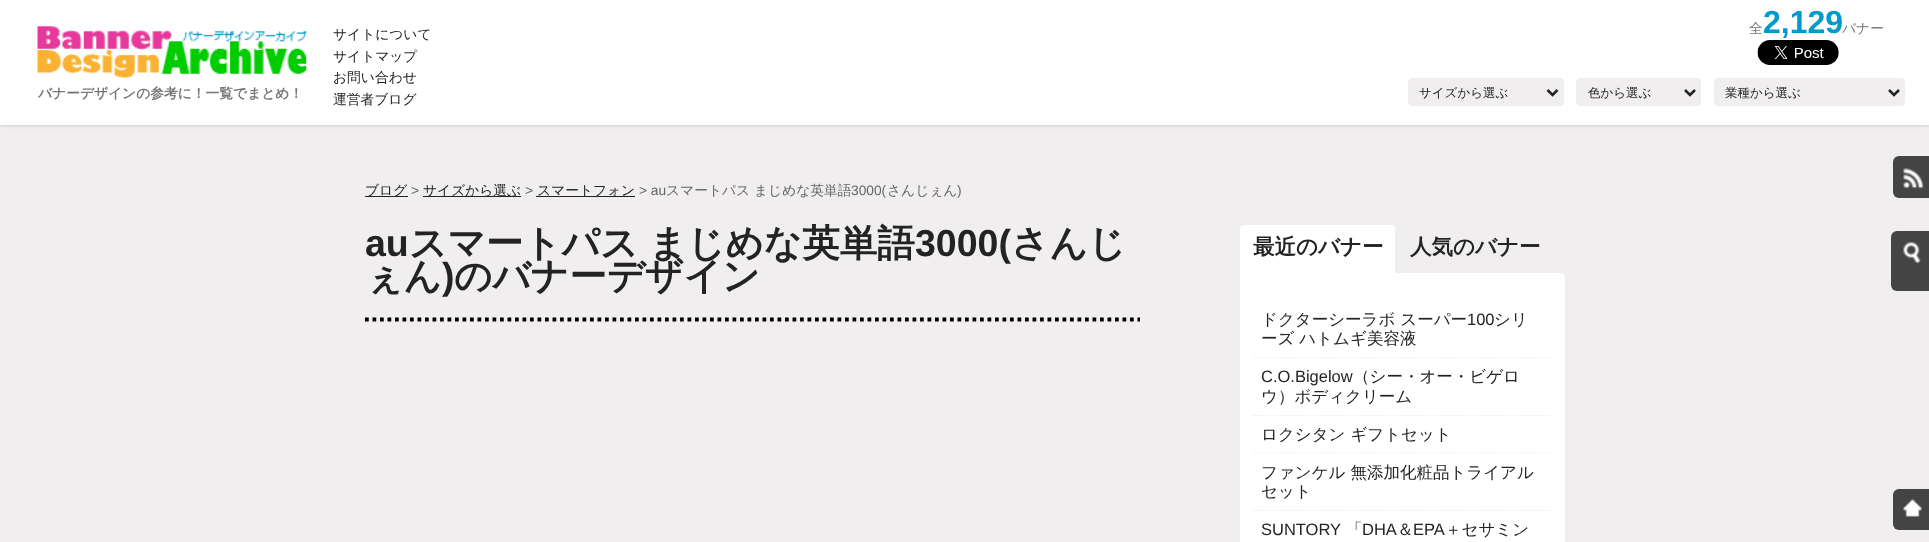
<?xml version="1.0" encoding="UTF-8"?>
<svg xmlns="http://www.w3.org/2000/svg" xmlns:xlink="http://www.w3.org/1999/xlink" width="1929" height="542">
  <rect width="100%" height="100%" fill="#f0eeee" />
  <rect width="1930" height="125" fill="#000000" fill-opacity="0.2" filter="blur(2px)" />
  <rect width="1929" height="125" fill="#ffffff" />
  <image x="37" y="26" width="270" height="52" xlink:href="image1.png" />
  <image x="1757" y="40" width="82" height="25" xlink:href="image2.png" />
  <rect x="1408.5" y="78.5" width="155" height="27" rx="3.5" fill="#f0eeee" stroke="#eeeeee" />
  <path d="M 1547.5 90 l 5 5 l 5 -5" fill="none" stroke="#232323" stroke-width="2.5" />
  <rect x="1576.5" y="78.5" width="124" height="27" rx="3.5" fill="#f0eeee" stroke="#eeeeee" />
  <path d="M 1685 90 l 5 5 l 5 -5" fill="none" stroke="#232323" stroke-width="2.5" />
  <rect x="1714.5" y="78.5" width="190" height="27" rx="3.5" fill="#f0eeee" stroke="#eeeeee" />
  <path d="M 1889 90 l 5 5 l 5 -5" fill="none" stroke="#232323" stroke-width="2.5" />
  <rect x="1893" y="156" width="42" height="42" rx="6" fill="#444444" />
  <image x="1903" y="168" width="21" height="21" xlink:href="image3.png" />
  <rect x="365" y="196" width="43" height="1" fill="#232323" />
  <rect x="423" y="196" width="98" height="1" fill="#232323" />
  <rect x="536" y="196" width="99" height="1" fill="#232323" />
  <path d="M 365 319.5 h 775" fill="none" stroke="#000000" stroke-width="3.8" stroke-dasharray="3.75 3.75" />
  <rect x="1240" y="273" width="325" height="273" rx="4" fill="#ffffff" />
  <rect x="1240" y="225" width="155" height="58" rx="4" fill="#ffffff" />
  <path d="M 1252.5 358 h 300" fill="none" stroke="#eeeeee" stroke-width="1.2" stroke-dasharray="1.25 1.25" />
  <path d="M 1252.5 415.5 h 300" fill="none" stroke="#eeeeee" stroke-width="1.2" stroke-dasharray="1.25 1.25" />
  <path d="M 1252.5 453 h 300" fill="none" stroke="#eeeeee" stroke-width="1.2" stroke-dasharray="1.25 1.25" />
  <path d="M 1252.5 510.5 h 300" fill="none" stroke="#eeeeee" stroke-width="1.2" stroke-dasharray="1.25 1.25" />
  <rect x="1891" y="231" width="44" height="60" rx="6" fill="#444444" />
  <image x="1903" y="242" width="18" height="22" xlink:href="image4.png" />
  <rect x="1893" y="489" width="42" height="41" rx="6" fill="#444444" />
  <image x="1903" y="499" width="19" height="18" xlink:href="image5.png" />
  <text x="38" y="98" style="font-family: WenQuanYi Zen Hei; font-size: 13.75px; font-weight: bold; fill: #777777">バナーデザインの参考に！一覧でまとめ！</text>
  <text x="333" y="39" style="font-family: WenQuanYi Zen Hei; font-size: 13.75px; font-weight: 500; fill: #232323">サイトについて</text>
  <text x="333" y="61" style="font-family: WenQuanYi Zen Hei; font-size: 13.75px; font-weight: 500; fill: #232323">サイトマップ</text>
  <text x="333" y="82" style="font-family: WenQuanYi Zen Hei; font-size: 13.75px; font-weight: 500; fill: #232323">お問い合わせ</text>
  <text x="333" y="104" style="font-family: WenQuanYi Zen Hei; font-size: 13.75px; font-weight: 500; fill: #232323">運営者ブログ</text>
  <text x="1749" y="33" style="font-family: WenQuanYi Zen Hei; font-size: 13.75px; font-weight: 500; fill: #777777">全</text>
  <text x="1763" y="33" style="font-family: Liberation Sans; font-size: 32px; font-weight: bold; fill: #009acc">2,129</text>
  <text x="1842" y="33" style="font-family: WenQuanYi Zen Hei; font-size: 13.75px; font-weight: 500; fill: #777777">バナー</text>
  <text x="1419" y="97" style="font-family: WenQuanYi Zen Hei; font-size: 12.5px; font-weight: 500; fill: #232323">サイズから選ぶ</text>
  <text x="1588" y="97" style="font-family: WenQuanYi Zen Hei; font-size: 12.5px; font-weight: 500; fill: #232323">色から選ぶ</text>
  <text x="1725" y="97" style="font-family: WenQuanYi Zen Hei; font-size: 12.5px; font-weight: 500; fill: #232323">業種から選ぶ</text>
  <text x="365" y="195" style="font-family: WenQuanYi Zen Hei; font-size: 13.75px; font-weight: 500; fill: #232323">ブログ</text>
  <text x="411" y="195" style="font-family: Liberation Sans; font-size: 13.75px; fill: #666666">&gt;</text>
  <text x="423" y="195" style="font-family: WenQuanYi Zen Hei; font-size: 13.75px; font-weight: 500; fill: #232323">サイズから選ぶ</text>
  <text x="525" y="195" style="font-family: Liberation Sans; font-size: 13.75px; fill: #666666">&gt;</text>
  <text x="537" y="195" style="font-family: WenQuanYi Zen Hei; font-size: 13.75px; font-weight: 500; fill: #232323">スマートフォン</text>
  <text x="639" y="195" style="font-family: Liberation Sans; font-size: 13.75px; fill: #666666">&gt; au</text>
  <text x="666" y="195" style="font-family: WenQuanYi Zen Hei; font-size: 13.75px; font-weight: 500; fill: #666666">スマートパス</text>
  <text x="754" y="195" style="font-family: WenQuanYi Zen Hei; font-size: 13.75px; font-weight: 500; fill: #666666">まじめな英単語</text>
  <text x="851" y="195" style="font-family: Liberation Sans; font-size: 13.75px; fill: #666666">3000(</text>
  <text x="887" y="195" style="font-family: WenQuanYi Zen Hei; font-size: 13.75px; font-weight: 500; fill: #666666">さんじぇん</text>
  <text x="957" y="195" style="font-family: Liberation Sans; font-size: 13.75px; fill: #666666">)</text>
  <text x="365" y="256" style="font-family: Liberation Sans; font-size: 37.5px; font-weight: bold; fill: #232323">au</text>
  <text x="409" y="256" word-spacing="-1" style="font-family: WenQuanYi Zen Hei; font-size: 37.5px; font-weight: bold; fill: #232323">スマートパス まじめな英単語</text>
  <text x="915" y="256" style="font-family: Liberation Sans; font-size: 37.5px; font-weight: bold; fill: #232323">3000(</text>
  <text x="1011" y="256" style="font-family: WenQuanYi Zen Hei; font-size: 37.5px; font-weight: bold; fill: #232323">さんじ</text>
  <text x="365" y="289" style="font-family: WenQuanYi Zen Hei; font-size: 37.5px; font-weight: bold; fill: #232323">ぇん</text>
  <text x="442" y="289" style="font-family: Liberation Sans; font-size: 37.5px; font-weight: bold; fill: #232323">)</text>
  <text x="454" y="289" style="font-family: WenQuanYi Zen Hei; font-size: 37.5px; font-weight: bold; fill: #232323">のバナーデザイン</text>
  <text x="1253" y="254" style="font-family: WenQuanYi Zen Hei; font-size: 21.5px; font-weight: bold; fill: #232323">最近のバナー</text>
  <text x="1410" y="254" style="font-family: WenQuanYi Zen Hei; font-size: 21.5px; font-weight: bold; fill: #232323">人気のバナー</text>
  <text x="1261" y="325" style="font-family: WenQuanYi Zen Hei; font-size: 16.5px; font-weight: 500; fill: #232323">ドクターシーラボ スーパー</text>
  <text x="1467" y="325" style="font-family: Liberation Sans; font-size: 16.5px; fill: #232323">100</text>
  <text x="1494" y="325" style="font-family: WenQuanYi Zen Hei; font-size: 16.5px; font-weight: 500; fill: #232323">シリ</text>
  <text x="1261" y="344" style="font-family: WenQuanYi Zen Hei; font-size: 16.5px; font-weight: 500; fill: #232323">ーズ ハトムギ美容液</text>
  <text x="1261" y="382" style="font-family: Liberation Sans; font-size: 16.5px; fill: #232323">C.O.Bigelow</text>
  <text x="1353" y="382" style="font-family: WenQuanYi Zen Hei; font-size: 16.5px; font-weight: 500; fill: #232323">（シー・オー・ビゲロ</text>
  <text x="1261" y="402" style="font-family: WenQuanYi Zen Hei; font-size: 16.5px; font-weight: 500; fill: #232323">ウ）ボディクリーム</text>
  <text x="1261" y="440" style="font-family: WenQuanYi Zen Hei; font-size: 16.5px; font-weight: 500; fill: #232323">ロクシタン ギフトセット</text>
  <text x="1261" y="478" style="font-family: WenQuanYi Zen Hei; font-size: 16.5px; font-weight: 500; fill: #232323">ファンケル 無添加化粧品トライアル</text>
  <text x="1261" y="497" style="font-family: WenQuanYi Zen Hei; font-size: 16.5px; font-weight: 500; fill: #232323">セット</text>
  <text x="1261" y="535" style="font-family: Liberation Sans; font-size: 16.5px; fill: #232323">SUNTORY</text>
  <text x="1346" y="535" style="font-family: WenQuanYi Zen Hei; font-size: 16.5px; font-weight: 500; fill: #232323">「</text>
  <text x="1362" y="535" style="font-family: Liberation Sans; font-size: 16.5px; fill: #232323">DHA</text>
  <text x="1397" y="535" style="font-family: WenQuanYi Zen Hei; font-size: 16.5px; font-weight: 500; fill: #232323">＆</text>
  <text x="1413" y="535" style="font-family: Liberation Sans; font-size: 16.5px; fill: #232323">EPA</text>
  <text x="1445" y="535" style="font-family: WenQuanYi Zen Hei; font-size: 16.5px; font-weight: 500; fill: #232323">＋セサミン</text>
</svg>
